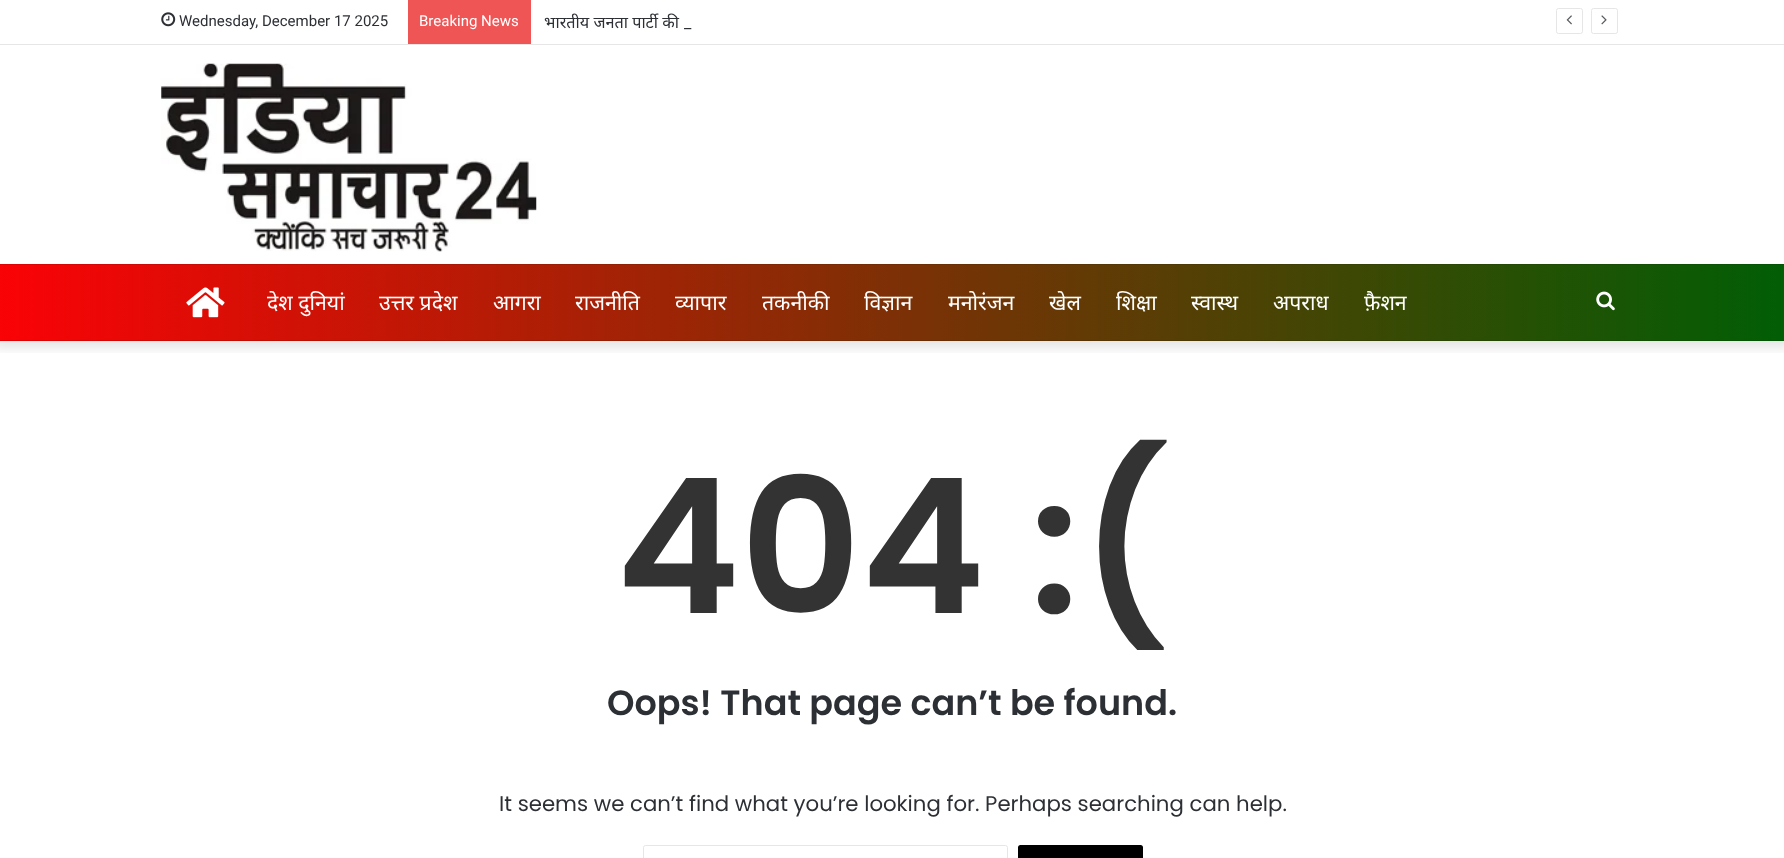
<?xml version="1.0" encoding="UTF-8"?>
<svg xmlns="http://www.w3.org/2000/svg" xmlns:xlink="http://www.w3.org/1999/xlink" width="1784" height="858">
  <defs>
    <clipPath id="clip1"><rect x="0" y="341" width="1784" height="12" /></clipPath>
    <linearGradient id="g1" gradientUnits="userSpaceOnUse" x1="0" y1="303" x2="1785" y2="302"><stop offset="0" stop-color="#fa0206" /><stop offset="1" stop-color="#015e04" /></linearGradient>
    <linearGradient id="g2" gradientUnits="userSpaceOnUse" x1="0" y1="303" x2="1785" y2="302"><stop offset="0" stop-color="#e10205" /><stop offset="1" stop-color="#015504" /></linearGradient>
  </defs>
  <rect width="100%" height="100%" fill="#ffffff" />
  <g clip-path="url(#clip1)">
    <rect x="-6" y="-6" width="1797" height="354" fill="#000000" fill-opacity="0.1" filter="blur(6px)" />
  </g>
  <rect y="44" width="1784" height="1" fill="#e6e6e6" />
  <image x="161" y="12" width="15" height="15" xlink:href="image1.png" />
  <rect x="408" width="123" height="44" fill="#f05555" />
  <rect x="1556.5" y="8.5" width="26" height="25" rx="2" fill="none" stroke="#e6e6e6" />
  <image x="1566" y="15" width="6" height="10" xlink:href="image2.png" />
  <rect x="1591.5" y="8.5" width="26" height="25" rx="2" fill="none" stroke="#e6e6e6" />
  <image x="1601" y="15" width="6" height="10" xlink:href="image3.png" />
  <image x="161" y="63" width="376" height="189" xlink:href="image4.png" />
  <rect y="265" width="1784" height="75" fill="url(#g1)" />
  <rect y="340" width="1784" height="1" fill="url(#g2)" />
  <rect y="264" width="1784" height="1" fill="url(#g2)" />
  <image x="186" y="287" width="39" height="31" xlink:href="image5.png" />
  <image x="1596" y="291" width="19" height="20" xlink:href="image6.png" />
  <rect x="643.5" y="845.5" width="364" height="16" rx="2" fill="none" stroke="#e6e6e6" />
  <rect x="1018" y="845" width="125" height="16" rx="2.5" fill="#000000" />
  <text x="179" y="26" style="font-family: Roboto; font-size: 15px; fill: #2c2f34">Wednesday, December 17 2025</text>
  <text x="419" y="26" style="font-family: Roboto; font-size: 15px; fill: #ffffff">Breaking News</text>
  <text x="544" y="28" style="font-family: Noto Sans; font-size: 16.25px; fill: #2c2f34">भारतीय जनता पार्टी की</text>
  <text x="684" y="28" style="font-family: Roboto; font-size: 16.25px; fill: #2c2f34">_</text>
  <text x="267" y="310" style="font-family: Noto Sans; font-size: 21.25px; fill: #ffffff">देश दुनियां</text>
  <text x="379" y="310" style="font-family: Noto Sans; font-size: 21.25px; fill: #ffffff">उत्तर प्रदेश</text>
  <text x="493" y="310" style="font-family: Noto Sans; font-size: 21.25px; fill: #ffffff">आगरा</text>
  <text x="575" y="310" style="font-family: Noto Sans; font-size: 21.25px; fill: #ffffff">राजनीति</text>
  <text x="675" y="310" style="font-family: Noto Sans; font-size: 21.25px; fill: #ffffff">व्यापार</text>
  <text x="762" y="310" style="font-family: Noto Sans; font-size: 21.25px; fill: #ffffff">तकनीकी</text>
  <text x="864" y="310" style="font-family: Noto Sans; font-size: 21.25px; fill: #ffffff">विज्ञान</text>
  <text x="948" y="310" style="font-family: Noto Sans; font-size: 21.25px; fill: #ffffff">मनोरंजन</text>
  <text x="1049" y="310" style="font-family: Noto Sans; font-size: 21.25px; fill: #ffffff">खेल</text>
  <text x="1116" y="310" style="font-family: Noto Sans; font-size: 21.25px; fill: #ffffff">शिक्षा</text>
  <text x="1191" y="310" style="font-family: Noto Sans; font-size: 21.25px; fill: #ffffff">स्वास्थ</text>
  <text x="1273" y="310" style="font-family: Noto Sans; font-size: 21.25px; fill: #ffffff">अपराध</text>
  <text x="1364" y="310" style="font-family: Noto Sans; font-size: 21.25px; fill: #ffffff">फ़ैशन</text>
  <text x="616" y="613" style="font-family: Poppins; font-size: 187.5px; font-weight: 600; fill: #333333">404 :(</text>
  <text x="607" y="715" style="font-family: Poppins; font-size: 35px; font-weight: 600; fill: #2c2f34">Oops! That page can’t be found.</text>
  <text x="499" y="811" style="font-family: Poppins; font-size: 21.25px; fill: #2c2f34">It seems we can’t find what you’re looking for. Perhaps searching can help.</text>
</svg>
